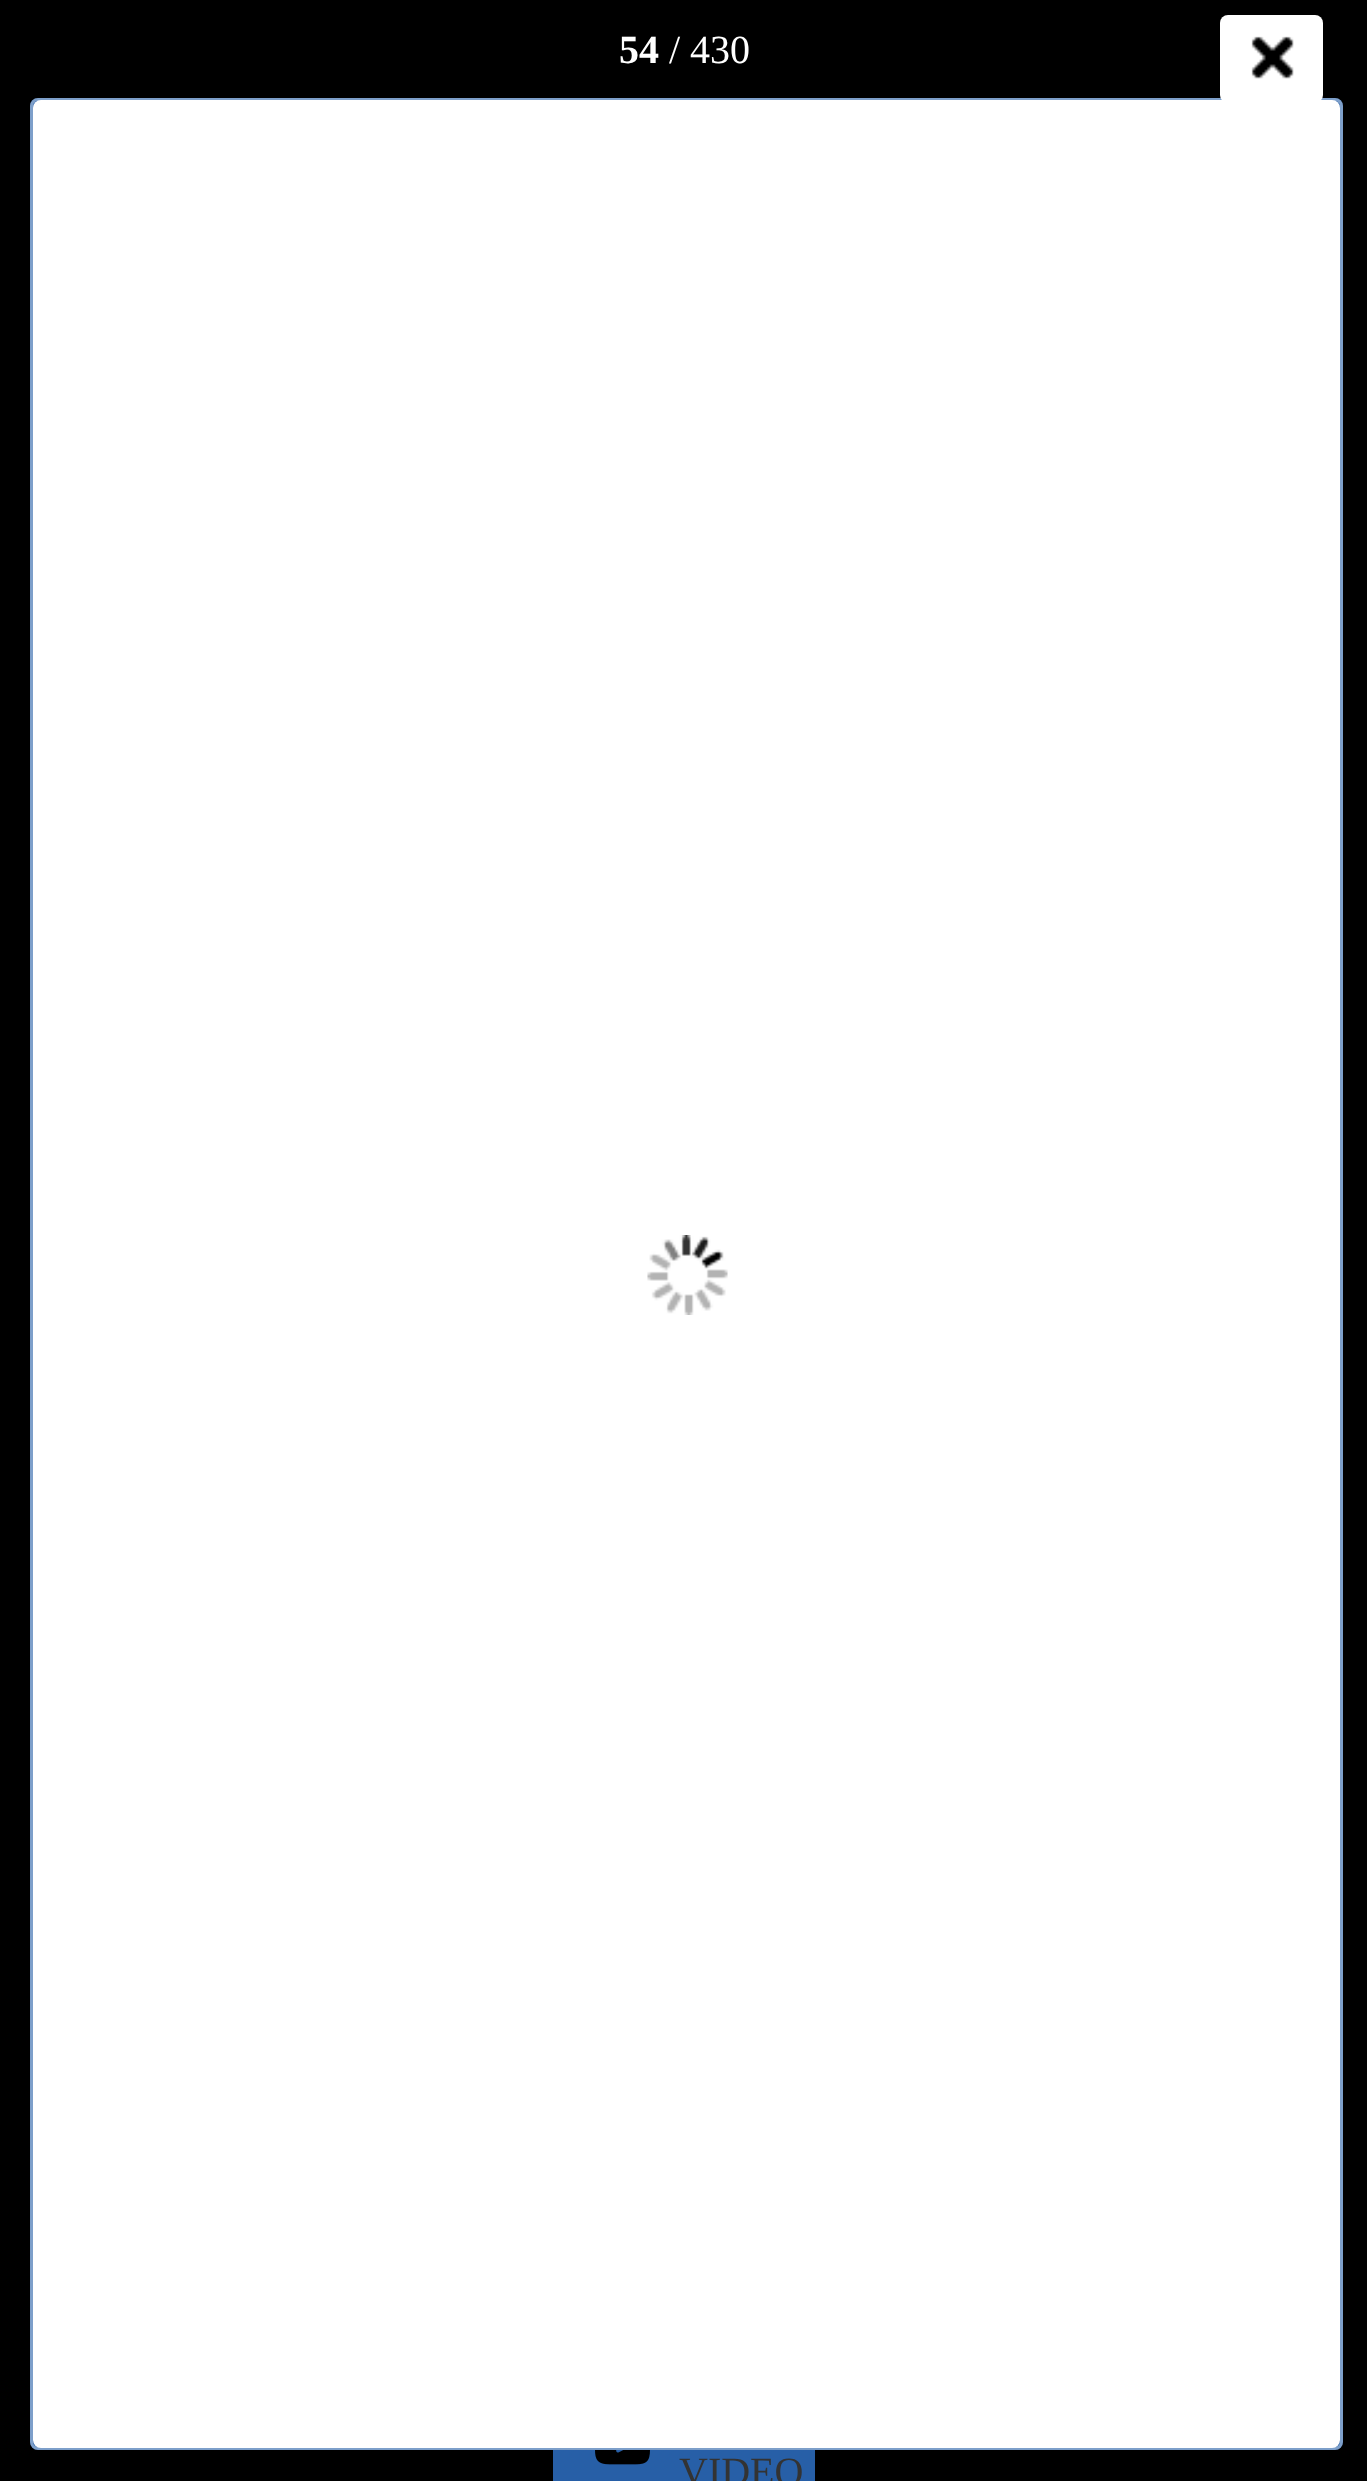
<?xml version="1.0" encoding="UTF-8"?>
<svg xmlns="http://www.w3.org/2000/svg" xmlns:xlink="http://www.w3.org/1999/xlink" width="1367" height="2481">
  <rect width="100%" height="100%" fill="#000000" />
  <rect x="30" y="98" width="1313" height="2352" rx="8" fill="#275fa7" />
  <rect x="31.5" y="99.5" width="1310" height="2349" rx="6.5" fill="none" stroke="#ffffff" stroke-opacity="0.4" stroke-width="3" />
  <rect x="33" y="100" width="1307" height="2348" rx="8" fill="#ffffff" />
  <rect x="1220" y="15" width="103" height="88" rx="8" fill="#ffffff" />
  <image x="1251" y="36" width="43" height="43" xlink:href="image1.png" />
  <image x="647" y="1235" width="81" height="80" xlink:href="image2.png" />
  <rect x="553" y="2450" width="262" height="31" fill="#275fa7" />
  <image x="595" y="2450" width="55" height="15" xlink:href="image3.png" />
  <text x="619" y="63" style="font-family: Liberation Serif; font-size: 40px; font-weight: bold; fill: #ffffff">54</text>
  <text x="669" y="63" style="font-family: Liberation Serif; font-size: 40px; fill: #ffffff">/ 430</text>
  <text x="679" y="2485" style="font-family: Liberation Serif; font-size: 40px; fill: #333333">VIDEO</text>
</svg>
